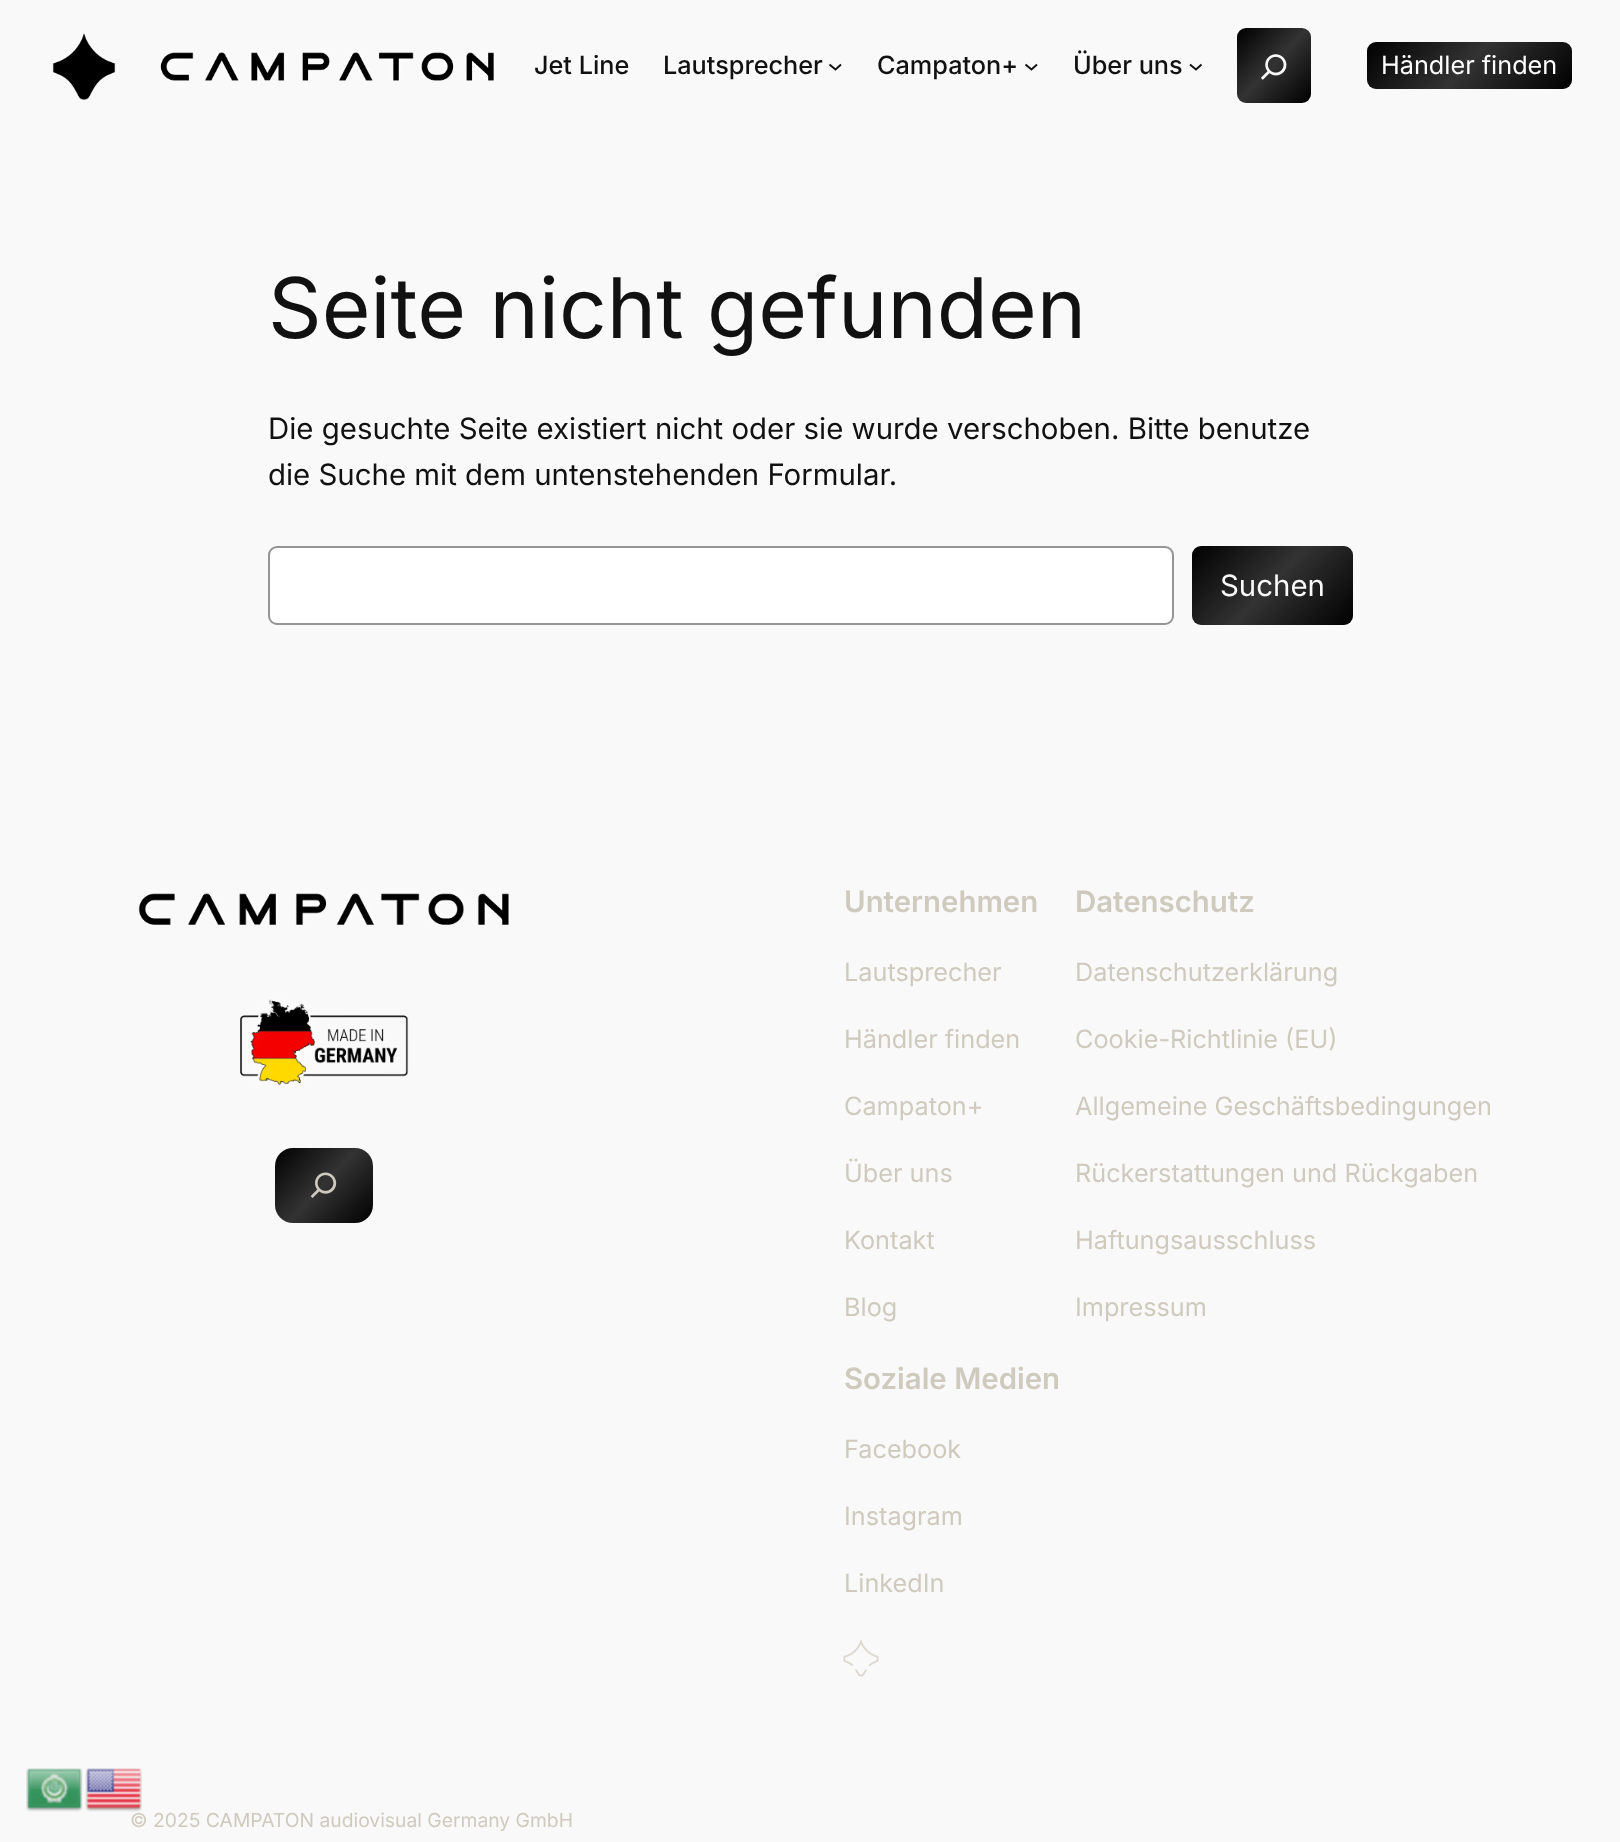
<?xml version="1.0" encoding="UTF-8"?>
<svg xmlns="http://www.w3.org/2000/svg" xmlns:xlink="http://www.w3.org/1999/xlink" width="1620" height="1842">
  <defs>
    <linearGradient id="g1" gradientUnits="userSpaceOnUse" x1="1236" y1="30" x2="1312" y2="101"><stop offset="0" stop-color="#000000" /><stop offset="0.49" stop-color="#333333" /><stop offset="1" stop-color="#000000" /></linearGradient>
    <linearGradient id="g2" gradientUnits="userSpaceOnUse" x1="1403" y1="3.6" x2="1536" y2="128"><stop offset="0" stop-color="#000000" /><stop offset="0.49" stop-color="#333333" /><stop offset="1" stop-color="#000000" /></linearGradient>
    <linearGradient id="g3" gradientUnits="userSpaceOnUse" x1="1210" y1="527" x2="1335" y2="644"><stop offset="0" stop-color="#000000" /><stop offset="0.49" stop-color="#333333" /><stop offset="1" stop-color="#000000" /></linearGradient>
    <linearGradient id="g4" gradientUnits="userSpaceOnUse" x1="279" y1="1144" x2="369" y2="1228"><stop offset="0" stop-color="#000000" /><stop offset="0.49" stop-color="#333333" /><stop offset="1" stop-color="#000000" /></linearGradient>
  </defs>
  <rect width="100%" height="100%" fill="#f9f9f9" />
  <image x="26" y="1768" width="57" height="44" xlink:href="image1.png" />
  <image x="85" y="1768" width="57" height="44" xlink:href="image2.png" />
  <image x="52" y="33" width="64" height="67" xlink:href="image3.png" />
  <image x="160" y="52" width="334" height="29" xlink:href="image4.png" />
  <path d="M 829.5 64.5 l 6 5 l 5.5 -5" fill="none" stroke="#111111" stroke-width="1.9" />
  <path d="M 1025.5 64.5 l 6 5 l 5.5 -5" fill="none" stroke="#111111" stroke-width="1.9" />
  <path d="M 1190 64.5 l 6 5 l 5.5 -5" fill="none" stroke="#111111" stroke-width="1.9" />
  <rect x="1237" y="28" width="74" height="75" rx="9" fill="url(#g1)" />
  <image x="1261" y="54" width="26" height="26" xlink:href="image5.png" />
  <rect x="1367" y="42" width="205" height="47" rx="9" fill="url(#g2)" />
  <rect x="269" y="547" width="904" height="77" rx="8" fill="#ffffff" stroke="#949494" stroke-width="2" />
  <rect x="1192" y="546" width="161" height="79" rx="9" fill="url(#g3)" />
  <image x="138" y="893" width="371" height="32" xlink:href="image6.png" />
  <image x="240" y="999" width="169" height="87" xlink:href="image7.png" />
  <rect x="275" y="1148" width="98" height="75" rx="18" fill="url(#g4)" />
  <image x="310" y="1172" width="27" height="26" xlink:href="image8.png" />
  <image x="843" y="1639" width="36" height="38" xlink:href="image9.png" />
  <text x="534" y="74" style="font-family: Inter; font-size: 25.25px; font-weight: 500; fill: #111111">Jet Line</text>
  <text x="663" y="74" style="font-family: Inter; font-size: 25.25px; font-weight: 500; fill: #111111">Lautsprecher</text>
  <text x="877" y="74" style="font-family: Inter; font-size: 25.25px; font-weight: 500; fill: #111111">Campaton+</text>
  <text x="1073" y="74" style="font-family: Inter; font-size: 25.25px; font-weight: 500; fill: #111111">Über uns</text>
  <text x="1381" y="74" style="font-family: Inter; font-size: 25.25px; fill: #ffffff">Händler finden</text>
  <text x="268" y="338" style="font-family: Inter; font-size: 83.6px; fill: #111111">Seite nicht gefunden</text>
  <text x="268" y="439" style="font-family: Inter; font-size: 29.4px; fill: #111111">Die gesuchte Seite existiert nicht oder sie wurde verschoben. Bitte benutze</text>
  <text x="268" y="485" style="font-family: Inter; font-size: 29.4px; fill: #111111">die Suche mit dem untenstehenden Formular.</text>
  <text x="1220" y="596" style="font-family: Inter; font-size: 29.4px; fill: #f9f9f9">Suchen</text>
  <text x="844" y="912" style="font-family: Inter; font-size: 29.4px; font-weight: 600; fill: #cfcabe">Unternehmen</text>
  <text x="844" y="981" style="font-family: Inter; font-size: 25.25px; fill: #cfcabe">Lautsprecher</text>
  <text x="844" y="1048" style="font-family: Inter; font-size: 25.25px; fill: #cfcabe">Händler finden</text>
  <text x="844" y="1115" style="font-family: Inter; font-size: 25.25px; fill: #cfcabe">Campaton+</text>
  <text x="844" y="1182" style="font-family: Inter; font-size: 25.25px; fill: #cfcabe">Über uns</text>
  <text x="844" y="1249" style="font-family: Inter; font-size: 25.25px; fill: #cfcabe">Kontakt</text>
  <text x="844" y="1316" style="font-family: Inter; font-size: 25.25px; fill: #cfcabe">Blog</text>
  <text x="1075" y="912" style="font-family: Inter; font-size: 29.4px; font-weight: 600; fill: #cfcabe">Datenschutz</text>
  <text x="1075" y="981" style="font-family: Inter; font-size: 25.25px; fill: #cfcabe">Datenschutzerklärung</text>
  <text x="1075" y="1048" style="font-family: Inter; font-size: 25.25px; fill: #cfcabe">Cookie-Richtlinie (EU)</text>
  <text x="1075" y="1115" style="font-family: Inter; font-size: 25.25px; fill: #cfcabe">Allgemeine Geschäftsbedingungen</text>
  <text x="1075" y="1182" style="font-family: Inter; font-size: 25.25px; fill: #cfcabe">Rückerstattungen und Rückgaben</text>
  <text x="1075" y="1249" style="font-family: Inter; font-size: 25.25px; fill: #cfcabe">Haftungsausschluss</text>
  <text x="1075" y="1316" style="font-family: Inter; font-size: 25.25px; fill: #cfcabe">Impressum</text>
  <text x="844" y="1389" style="font-family: Inter; font-size: 29.4px; font-weight: 600; fill: #cfcabe">Soziale Medien</text>
  <text x="844" y="1458" style="font-family: Inter; font-size: 25.25px; fill: #cfcabe">Facebook</text>
  <text x="844" y="1525" style="font-family: Inter; font-size: 25.25px; fill: #cfcabe">Instagram</text>
  <text x="844" y="1592" style="font-family: Inter; font-size: 25.25px; fill: #cfcabe">LinkedIn</text>
  <text x="130" y="1827" style="font-family: Inter; font-size: 19.3px; fill: #cfcabe">© 2025 CAMPATON audiovisual Germany GmbH</text>
</svg>
